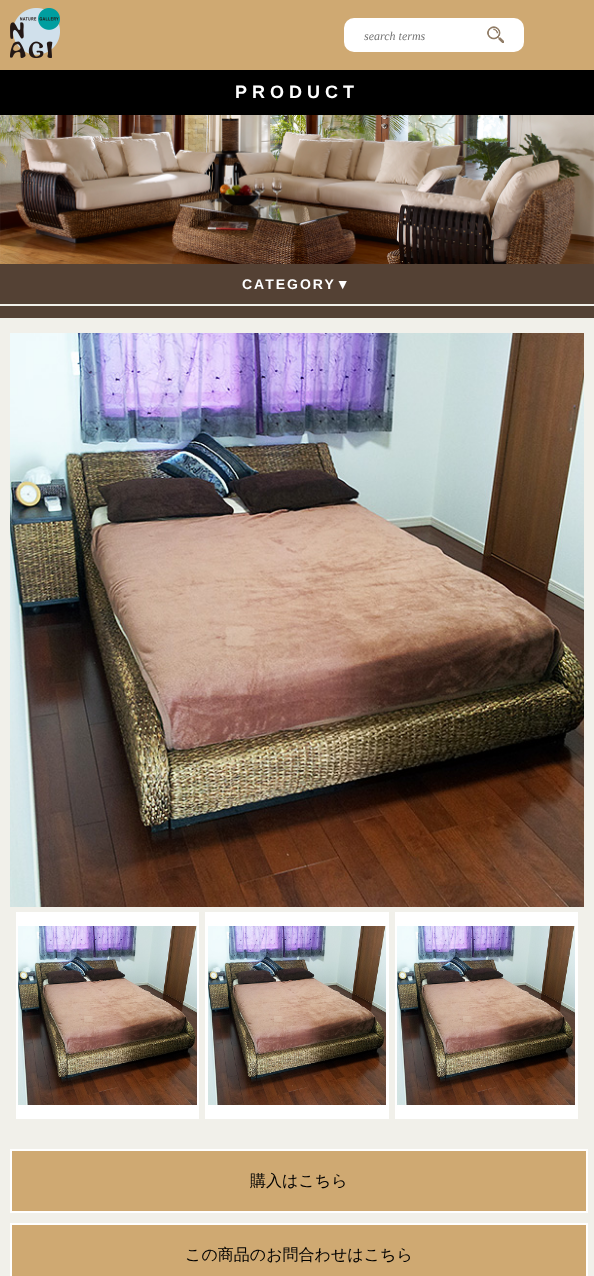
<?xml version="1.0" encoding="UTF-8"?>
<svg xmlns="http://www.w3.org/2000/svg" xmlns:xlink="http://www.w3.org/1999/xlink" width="594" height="1276">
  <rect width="100%" height="100%" fill="#cfa972" />
  <image x="10" y="8" width="50" height="50" xlink:href="image1.png" />
  <rect x="344" y="18" width="180" height="34" rx="10" fill="#ffffff" />
  <image x="487" y="26" width="17" height="17" xlink:href="image2.png" />
  <rect y="318" width="594" height="958" fill="#f1f0ea" />
  <rect y="70" width="594" height="45" fill="#000000" />
  <image x="0" y="115" width="594" height="149" xlink:href="image3.png" />
  <rect y="264" width="594" height="40" fill="#544134" />
  <rect y="304" width="594" height="2" fill="#f1f0ea" />
  <rect y="306" width="594" height="12" fill="#544134" />
  <image x="10" y="333" width="574" height="574" xlink:href="image4.png" />
  <rect x="16" y="912" width="183" height="207" fill="#ffffff" />
  <image x="18" y="926" width="179" height="179" xlink:href="image5.png" />
  <rect x="205" y="912" width="184" height="207" fill="#ffffff" />
  <image x="208" y="926" width="178" height="179" xlink:href="image6.png" />
  <rect x="395" y="912" width="183" height="207" fill="#ffffff" />
  <image x="397" y="926" width="178" height="179" xlink:href="image7.png" />
  <rect x="11" y="1150" width="576" height="62" fill="#cfa972" stroke="#ffffff" stroke-width="2" />
  <rect x="11" y="1224" width="576" height="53" fill="#cfa972" stroke="#ffffff" stroke-width="2" />
  <text x="364" y="40" style="font-family: Liberation Serif; font-size: 12px; font-style: italic; fill: #757575">search terms</text>
  <text x="235" y="98" style="font-family: Liberation Sans; font-size: 18px; font-weight: bold; letter-spacing: 5px; fill: #ffffff">PRODUCT</text>
  <text x="242" y="289" style="font-family: Liberation Sans; font-size: 14px; font-weight: bold; letter-spacing: 2px; fill: #ffffff">CATEGORY▼</text>
  <text x="250" y="1186" style="font-family: WenQuanYi Zen Hei; font-size: 16px; font-weight: 500; fill: #000000">購入はこちら</text>
  <text x="185" y="1260" style="font-family: WenQuanYi Zen Hei; font-size: 16px; font-weight: 500; fill: #000000">この商品のお問合わせはこちら</text>
</svg>
